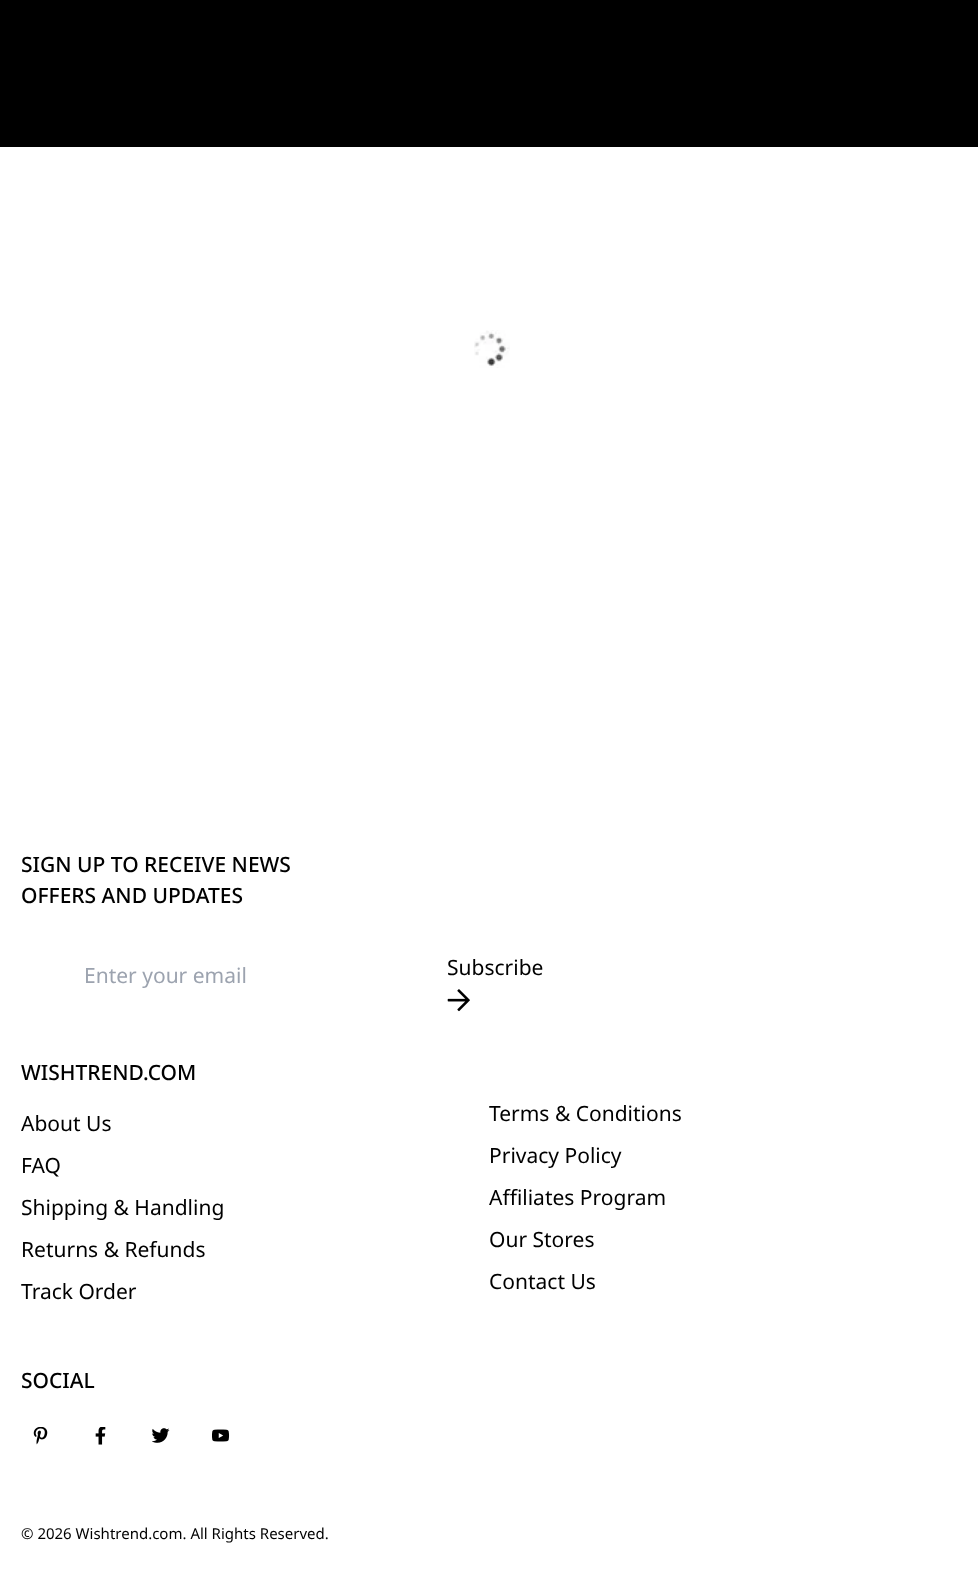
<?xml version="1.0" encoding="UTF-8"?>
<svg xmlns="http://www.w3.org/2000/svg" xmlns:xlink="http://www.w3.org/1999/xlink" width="978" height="1584">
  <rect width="100%" height="100%" fill="#ffffff" />
  <rect width="978" height="147" fill="#000000" />
  <image x="474" y="330" width="36" height="38" xlink:href="image1.png" />
  <image x="447" y="989" width="23" height="23" xlink:href="image2.png" />
  <image x="33" y="1427" width="15" height="18" xlink:href="image3.png" />
  <image x="95" y="1427" width="11" height="18" xlink:href="image4.png" />
  <image x="152" y="1428" width="18" height="15" xlink:href="image5.png" />
  <image x="212" y="1429" width="18" height="13" xlink:href="image6.png" />
  <text x="21" y="872" style="font-family: Noto Sans; font-size: 21px; font-weight: 500; fill: #000000">SIGN UP TO RECEIVE NEWS</text>
  <text x="21" y="903" style="font-family: Noto Sans; font-size: 21px; font-weight: 500; fill: #000000">OFFERS AND UPDATES</text>
  <text x="84" y="983" style="font-family: Noto Sans; font-size: 21px; fill: #9ca3af">Enter your email</text>
  <text x="447" y="975" style="font-family: Noto Sans; font-size: 21px; fill: #000000">Subscribe</text>
  <text x="21" y="1080" style="font-family: Noto Sans; font-size: 21px; font-weight: 500; fill: #000000">WISHTREND.COM</text>
  <text x="21" y="1131" style="font-family: Noto Sans; font-size: 21px; fill: #000000">About Us</text>
  <text x="21" y="1173" style="font-family: Noto Sans; font-size: 21px; fill: #000000">FAQ</text>
  <text x="21" y="1215" style="font-family: Noto Sans; font-size: 21px; fill: #000000">Shipping &amp; Handling</text>
  <text x="21" y="1257" style="font-family: Noto Sans; font-size: 21px; fill: #000000">Returns &amp; Refunds</text>
  <text x="21" y="1299" style="font-family: Noto Sans; font-size: 21px; fill: #000000">Track Order</text>
  <text x="489" y="1121" style="font-family: Noto Sans; font-size: 21px; fill: #000000">Terms &amp; Conditions</text>
  <text x="489" y="1163" style="font-family: Noto Sans; font-size: 21px; fill: #000000">Privacy Policy</text>
  <text x="489" y="1205" style="font-family: Noto Sans; font-size: 21px; fill: #000000">Affiliates Program</text>
  <text x="489" y="1247" style="font-family: Noto Sans; font-size: 21px; fill: #000000">Our Stores</text>
  <text x="489" y="1289" style="font-family: Noto Sans; font-size: 21px; fill: #000000">Contact Us</text>
  <text x="21" y="1388" style="font-family: Noto Sans; font-size: 21px; font-weight: 500; fill: #000000">SOCIAL</text>
  <text x="21" y="1539" style="font-family: Noto Sans; font-size: 15px; fill: #000000">© 2026 Wishtrend.com. All Rights Reserved.</text>
</svg>
